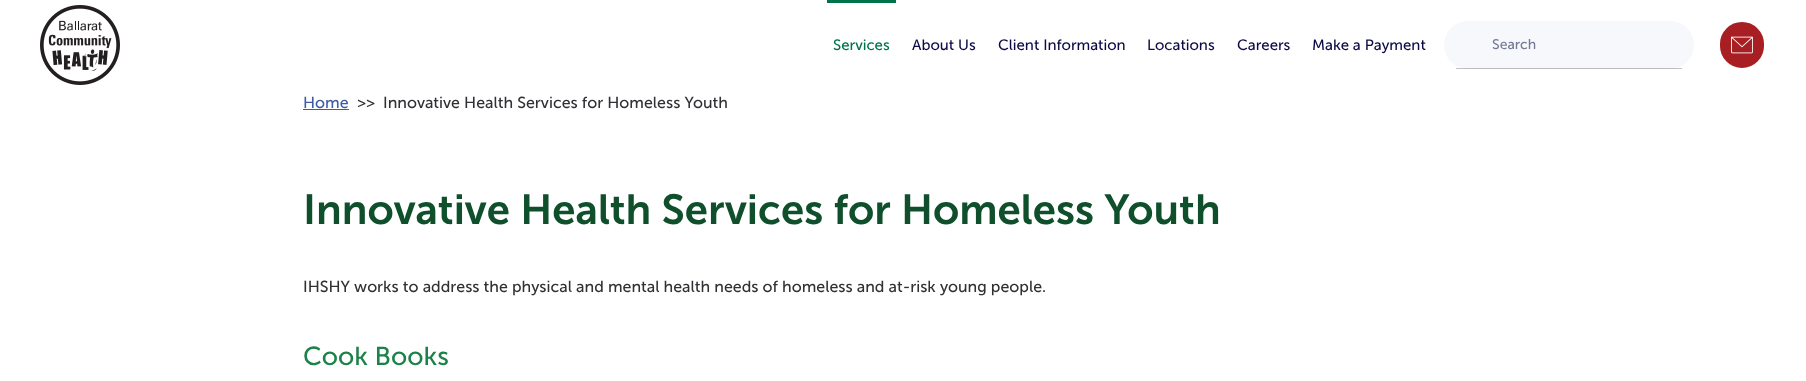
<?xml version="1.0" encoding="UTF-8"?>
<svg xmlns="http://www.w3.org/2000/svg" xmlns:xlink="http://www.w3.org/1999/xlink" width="1806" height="381">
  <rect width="100%" height="100%" fill="#ffffff" />
  <image x="40" y="5" width="80" height="80" xlink:href="image1.png" />
  <rect x="827" width="69" height="3" fill="#017348" />
  <rect x="1444" y="21" width="250" height="48" rx="24" fill="#f7f8fc" />
  <rect x="1456" y="68" width="226" height="1" fill="#000000" fill-opacity="0.24" />
  <rect x="1719" y="21" width="46" height="48" rx="23" fill="#a81f23" stroke="#ffffff" stroke-width="2" />
  <image x="1731" y="36" width="22" height="18" xlink:href="image2.png" />
  <rect x="303" y="109" width="46" height="1" fill="#3b5ca9" />
  <text x="833" y="50" style="font-family: 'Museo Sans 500'; font-size: 15px; fill: #017348">Services</text>
  <text x="912" y="50" style="font-family: 'Museo Sans 500'; font-size: 15px; fill: #0d0a46">About Us</text>
  <text x="998" y="50" style="font-family: 'Museo Sans 500'; font-size: 15px; fill: #0d0a46">Client Information</text>
  <text x="1147" y="50" style="font-family: 'Museo Sans 500'; font-size: 15px; fill: #0d0a46">Locations</text>
  <text x="1237" y="50" style="font-family: 'Museo Sans 500'; font-size: 15px; fill: #0d0a46">Careers</text>
  <text x="1312" y="50" style="font-family: 'Museo Sans 500'; font-size: 15px; fill: #0d0a46">Make a Payment</text>
  <text x="1492" y="49" style="font-family: 'Museo Sans 500'; font-size: 14px; fill: #747a96">Search</text>
  <text x="303" y="108" style="font-family: 'Museo Sans 500'; font-size: 16px; fill: #3b5ca9">Home</text>
  <text x="357" y="108" style="font-family: 'Museo Sans 500'; font-size: 16px; fill: #303035">&gt;&gt;</text>
  <text x="383" y="108" style="font-family: 'Museo Sans 500'; font-size: 16px; fill: #303035">Innovative Health Services for Homeless Youth</text>
  <text x="303" y="224" style="font-family: 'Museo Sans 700'; font-size: 42px; font-weight: 600; fill: #0f4f2c">Innovative Health Services for Homeless Youth</text>
  <text x="303" y="292" style="font-family: 'Museo Sans 500'; font-size: 16px; fill: #303035">IHSHY works to address the physical and mental health needs of homeless and at-risk young people.</text>
  <text x="303" y="365" style="font-family: 'Museo Sans 500'; font-size: 26px; fill: #1c8248">Cook Books</text>
</svg>
